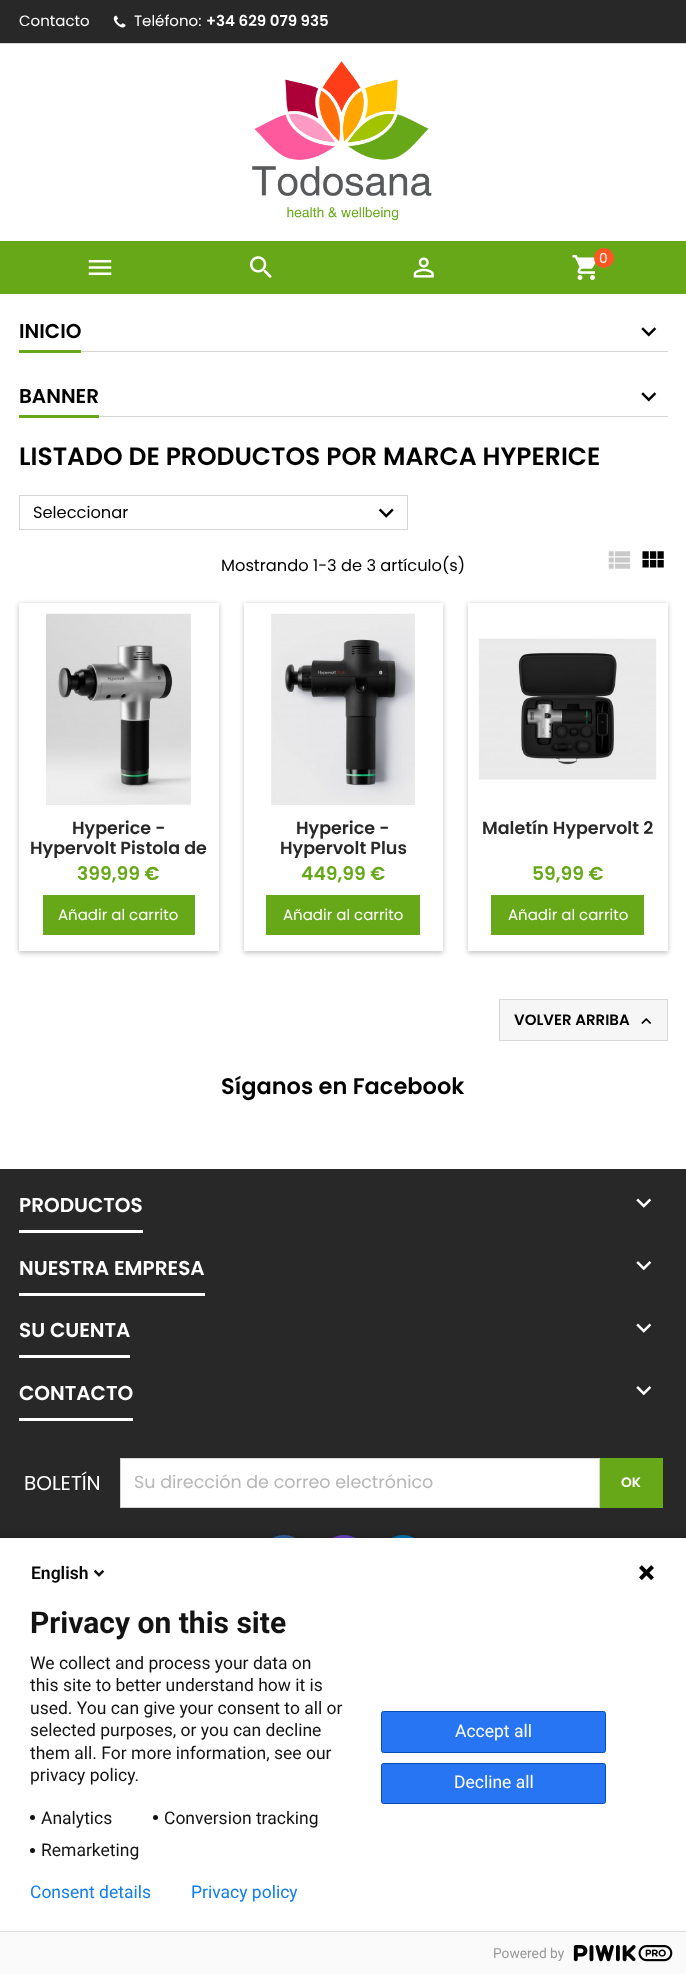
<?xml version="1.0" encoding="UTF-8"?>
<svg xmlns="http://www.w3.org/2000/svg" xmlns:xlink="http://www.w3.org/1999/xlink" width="686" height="1974">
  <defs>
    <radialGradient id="g1" gradientUnits="userSpaceOnUse" cx="334" cy="1589" r="64"><stop offset="0" stop-color="#fdf497" /><stop offset="0.05" stop-color="#fdf497" /><stop offset="0.45" stop-color="#fd5949" /><stop offset="0.6" stop-color="#d6249f" /><stop offset="1" stop-color="#285aeb" /></radialGradient>
    <clipPath id="clip1"><rect x="30" y="818" width="178" height="40" /></clipPath>
    <clipPath id="clip2"><rect x="255" y="818" width="176" height="40" /></clipPath>
  </defs>
  <rect width="100%" height="100%" fill="#ffffff" />
  <rect width="686" height="43" fill="#282828" />
  <rect y="43" width="686" height="1" fill="#d6d4d4" />
  <image x="113" y="15" width="13" height="13" xlink:href="image1.png" />
  <image x="252" y="61" width="180" height="160" xlink:href="image2.png" />
  <rect y="241" width="686" height="53" fill="#67a819" />
  <image x="88" y="260" width="24" height="15" xlink:href="image3.png" />
  <image x="250" y="256" width="22" height="22" xlink:href="image4.png" />
  <image x="413" y="257" width="21" height="21" xlink:href="image5.png" />
  <image x="572" y="255" width="24" height="25" xlink:href="image6.png" />
  <circle cx="604" cy="258" r="10" fill="#ff5722" />
  <rect x="81" y="351" width="587" height="1" fill="#d6d4d4" />
  <rect x="19" y="350" width="62" height="3" fill="#67a819" />
  <image x="641" y="327" width="16" height="10" xlink:href="image7.png" />
  <rect x="99" y="416" width="569" height="1" fill="#d6d4d4" />
  <rect x="19" y="415" width="80" height="3" fill="#67a819" />
  <image x="641" y="392" width="16" height="10" xlink:href="image7.png" />
  <rect x="19.5" y="495.5" width="388" height="34" fill="none" stroke="#d6d4d4" />
  <image x="378" y="508" width="16" height="10" xlink:href="image8.png" />
  <image x="608" y="551" width="22" height="18" xlink:href="image9.png" />
  <image x="642" y="551" width="22" height="17" xlink:href="image10.png" />
  <rect x="19" y="604" width="200" height="349" fill="#000000" fill-opacity="0.24" filter="blur(2.5px)" />
  <rect x="19" y="603" width="200" height="348" fill="#ffffff" />
  <image x="46" y="613" width="145" height="192" xlink:href="image11.png" />
  <rect x="43" y="895" width="152" height="40" fill="#67a819" />
  <rect x="244" y="604" width="199" height="349" fill="#000000" fill-opacity="0.24" filter="blur(2.5px)" />
  <rect x="244" y="603" width="199" height="348" fill="#ffffff" />
  <image x="271" y="613" width="144" height="192" xlink:href="image12.png" />
  <rect x="266" y="895" width="154" height="40" fill="#67a819" />
  <rect x="468" y="604" width="200" height="349" fill="#000000" fill-opacity="0.24" filter="blur(2.5px)" />
  <rect x="468" y="603" width="200" height="348" fill="#ffffff" />
  <image x="478" y="638" width="179" height="142" xlink:href="image13.png" />
  <rect x="491" y="895" width="153" height="40" fill="#67a819" />
  <rect x="499.5" y="999.5" width="168" height="41" fill="#f6f6f6" stroke="#d8d8d8" />
  <image x="641" y="1018" width="11" height="6" xlink:href="image14.png" />
  <rect y="1169" width="686" height="369" fill="#282828" />
  <rect x="19" y="1230" width="124" height="3" fill="#ffffff" />
  <image x="636" y="1198" width="16" height="10" xlink:href="image15.png" />
  <rect x="19" y="1293" width="186" height="3" fill="#ffffff" />
  <image x="636" y="1261" width="16" height="10" xlink:href="image16.png" />
  <rect x="19" y="1355" width="111" height="3" fill="#ffffff" />
  <image x="636" y="1323" width="16" height="10" xlink:href="image15.png" />
  <rect x="19" y="1418" width="114" height="3" fill="#ffffff" />
  <image x="636" y="1386" width="16" height="10" xlink:href="image16.png" />
  <rect x="120.5" y="1458.5" width="479" height="49" fill="#ffffff" stroke="#d6d4d4" />
  <rect x="600" y="1458" width="63" height="50" fill="#67a819" />
  <circle cx="284" cy="1560" r="25" fill="#3765a3" />
  <circle cx="344" cy="1560" r="25" fill="url(#g1)" />
  <circle cx="403" cy="1560" r="25" fill="#0077b5" />
  <rect x="-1" y="1534" width="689" height="440" fill="#000000" fill-opacity="0.14" filter="blur(3px)" />
  <rect y="1538" width="686" height="393" fill="#ffffff" />
  <image x="93" y="1569" width="12" height="8" xlink:href="image17.png" />
  <image x="639" y="1565" width="15" height="16" xlink:href="image18.png" />
  <circle cx="32.5" cy="1817.5" r="2.5" fill="#131313" />
  <circle cx="155.5" cy="1817.5" r="2.5" fill="#131313" />
  <circle cx="32.5" cy="1850.5" r="2.5" fill="#131313" />
  <rect x="381.5" y="1711.5" width="224" height="41" rx="2" fill="#2775f2" stroke="#0b4bb3" />
  <rect x="381.5" y="1763.5" width="224" height="40" rx="2" fill="#2775f2" stroke="#0b4bb3" />
  <rect y="1932" width="686" height="42" fill="#fafafa" />
  <rect y="1931" width="686" height="1" fill="#dddddd" />
  <image x="573" y="1945" width="100" height="17" xlink:href="image19.png" />
  <text x="19" y="26" style="font-family: Poppins; font-size: 15px; fill: #ffffff">Contacto</text>
  <text x="134" y="26" style="font-family: Poppins; font-size: 15px; fill: #ffffff">Teléfono:</text>
  <text x="206" y="26" style="font-family: Poppins; font-size: 15px; font-weight: 600; fill: #ffffff">+34 629 079 935</text>
  <text x="599" y="263" style="font-family: Poppins; font-size: 13.75px; fill: #ffffff">0</text>
  <text x="19" y="338" style="font-family: Poppins; font-size: 20px; font-weight: 600; fill: #000000">INICIO</text>
  <text x="19" y="403" style="font-family: Poppins; font-size: 20px; font-weight: 600; fill: #000000">BANNER</text>
  <text x="19" y="465" style="font-family: Poppins; font-size: 25px; font-weight: 600; fill: #000000">LISTADO DE PRODUCTOS POR MARCA HYPERICE</text>
  <text x="33" y="518" style="font-family: Poppins; font-size: 16.25px; fill: #000000">Seleccionar</text>
  <text x="221" y="571" style="font-family: Poppins; font-size: 16.25px; fill: #000000">Mostrando 1-3 de 3 artículo(s)</text>
  <text x="72" y="834" style="font-family: Poppins; font-size: 17.5px; font-weight: 600; fill: #292929">Hyperice -</text>
  <g clip-path="url(#clip1)">
    <text x="30" y="854" style="font-family: Poppins; font-size: 17.5px; font-weight: 600; fill: #292929">Hypervolt Pistola de</text>
  </g>
  <text x="77" y="880" style="font-family: Poppins; font-size: 18.75px; font-weight: 600; fill: #67a819">399,99 €</text>
  <text x="58" y="920" style="font-family: Poppins; font-size: 15px; fill: #ffffff">Añadir al carrito</text>
  <text x="296" y="834" style="font-family: Poppins; font-size: 17.5px; font-weight: 600; fill: #292929">Hyperice -</text>
  <g clip-path="url(#clip2)">
    <text x="280" y="854" style="font-family: Poppins; font-size: 17.5px; font-weight: 600; fill: #292929">Hypervolt Plus</text>
  </g>
  <text x="301" y="880" style="font-family: Poppins; font-size: 18.75px; font-weight: 600; fill: #67a819">449,99 €</text>
  <text x="283" y="920" style="font-family: Poppins; font-size: 15px; fill: #ffffff">Añadir al carrito</text>
  <text x="482" y="834" style="font-family: Poppins; font-size: 17.5px; font-weight: 600; fill: #292929">Maletín Hypervolt 2</text>
  <text x="532" y="880" style="font-family: Poppins; font-size: 18.75px; font-weight: 600; fill: #67a819">59,99 €</text>
  <text x="508" y="920" style="font-family: Poppins; font-size: 15px; fill: #ffffff">Añadir al carrito</text>
  <text x="514" y="1025" style="font-family: Poppins; font-size: 15px; font-weight: 600; fill: #000000">VOLVER ARRIBA</text>
  <text x="221" y="1094" style="font-family: Poppins; font-size: 22.5px; font-weight: 600; fill: #000000">Síganos en Facebook</text>
  <text x="19" y="1212" style="font-family: Poppins; font-size: 20px; font-weight: 600; fill: #ffffff">PRODUCTOS</text>
  <text x="19" y="1275" style="font-family: Poppins; font-size: 20px; font-weight: 600; fill: #ffffff">NUESTRA EMPRESA</text>
  <text x="19" y="1337" style="font-family: Poppins; font-size: 20px; font-weight: 600; fill: #ffffff">SU CUENTA</text>
  <text x="19" y="1400" style="font-family: Poppins; font-size: 20px; font-weight: 600; fill: #ffffff">CONTACTO</text>
  <text x="24" y="1490" style="font-family: Poppins; font-size: 20px; fill: #ffffff">BOLETÍN</text>
  <text x="134" y="1488" style="font-family: Poppins; font-size: 17.5px; fill: #b7b7b7">Su dirección de correo electrónico</text>
  <text x="621" y="1487" style="font-family: Poppins; font-size: 13.75px; font-weight: 600; fill: #ffffff">OK</text>
  <text x="31" y="1579" style="font-family: Roboto; font-size: 17.5px; font-weight: 600; fill: #000000">English</text>
  <text x="30" y="1633" style="font-family: Roboto; font-size: 30px; font-weight: bold; fill: #131313">Privacy on this site</text>
  <text x="30" y="1669" style="font-family: Roboto; font-size: 17.5px; fill: #131313">We collect and process your data on</text>
  <text x="30" y="1691" style="font-family: Roboto; font-size: 17.5px; fill: #131313">this site to better understand how it is</text>
  <text x="30" y="1714" style="font-family: Roboto; font-size: 17.5px; fill: #131313">used. You can give your consent to all or</text>
  <text x="30" y="1736" style="font-family: Roboto; font-size: 17.5px; fill: #131313">selected purposes, or you can decline</text>
  <text x="30" y="1759" style="font-family: Roboto; font-size: 17.5px; fill: #131313">them all. For more information, see our</text>
  <text x="30" y="1781" style="font-family: Roboto; font-size: 17.5px; fill: #131313">privacy policy.</text>
  <text x="41" y="1824" style="font-family: Roboto; font-size: 17.5px; fill: #131313">Analytics</text>
  <text x="164" y="1824" style="font-family: Roboto; font-size: 17.5px; fill: #131313">Conversion tracking</text>
  <text x="41" y="1856" style="font-family: Roboto; font-size: 17.5px; fill: #131313">Remarketing</text>
  <text x="455" y="1737" style="font-family: Roboto; font-size: 17.5px; fill: #ffffff">Accept all</text>
  <text x="454" y="1788" style="font-family: Roboto; font-size: 17.5px; fill: #ffffff">Decline all</text>
  <text x="30" y="1898" style="font-family: Roboto; font-size: 17.5px; fill: #107ef1">Consent details</text>
  <text x="191" y="1898" style="font-family: Roboto; font-size: 17.5px; fill: #107ef1">Privacy policy</text>
  <text x="493" y="1958" style="font-family: Roboto; font-size: 13.75px; fill: #999999">Powered by</text>
</svg>
